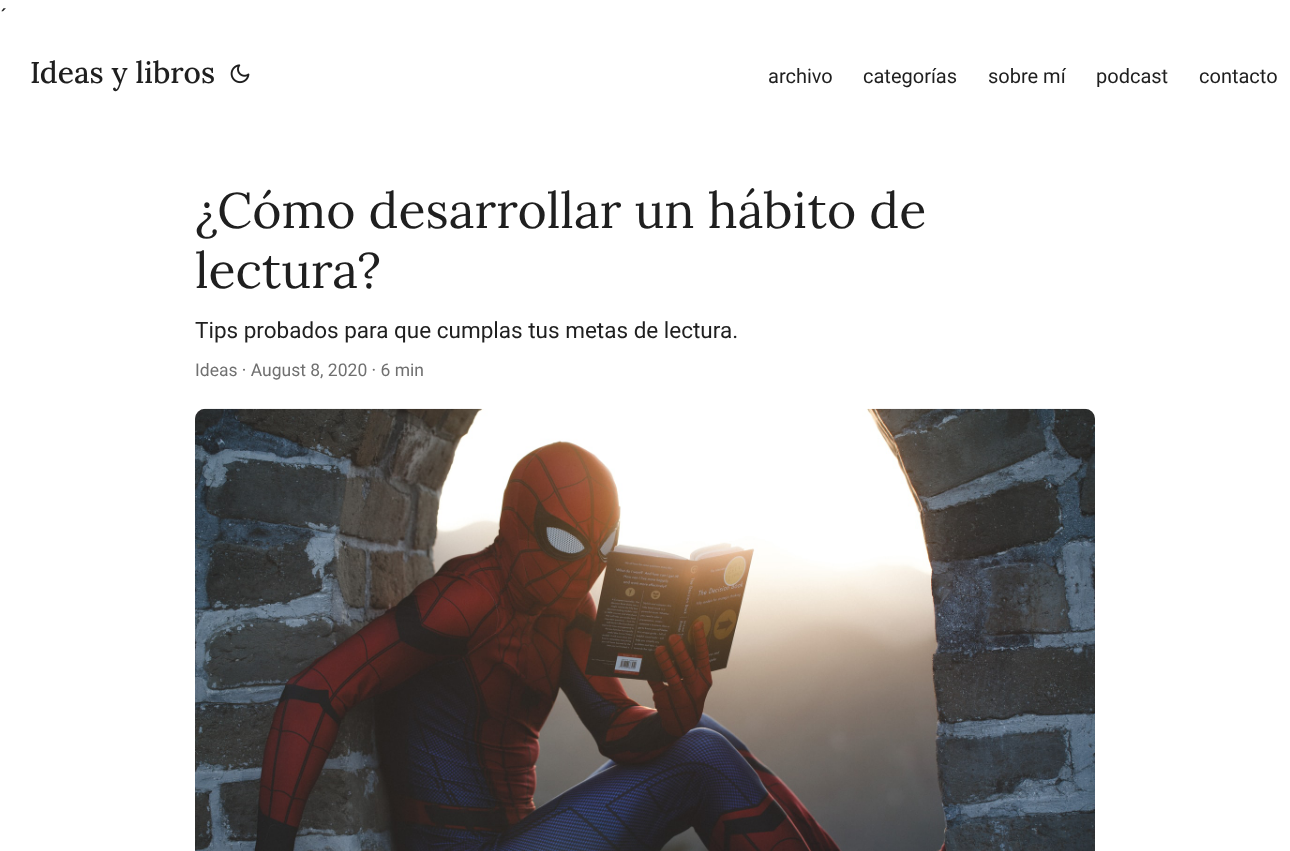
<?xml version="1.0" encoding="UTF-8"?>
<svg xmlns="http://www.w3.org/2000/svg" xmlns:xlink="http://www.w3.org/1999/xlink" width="1290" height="851">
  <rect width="100%" height="100%" fill="#ffffff" />
  <image x="230" y="64" width="20" height="20" xlink:href="image1.png" />
  <image x="195" y="408" width="900" height="443" xlink:href="image2.png" />
  <text x="0" y="25" style="font-family: Roboto; font-size: 22.5px; fill: #1f1f1f">´</text>
  <text x="30" y="83" style="font-family: Lora; font-size: 30px; font-weight: 500; fill: #1f1f1f">Ideas y libros</text>
  <text x="768" y="83" style="font-family: Roboto; font-size: 20px; fill: #1f1f1f">archivo</text>
  <text x="863" y="83" style="font-family: Roboto; font-size: 20px; fill: #1f1f1f">categorías</text>
  <text x="988" y="83" style="font-family: Roboto; font-size: 20px; fill: #1f1f1f">sobre mí</text>
  <text x="1096" y="83" style="font-family: Roboto; font-size: 20px; fill: #1f1f1f">podcast</text>
  <text x="1199" y="83" style="font-family: Roboto; font-size: 20px; fill: #1f1f1f">contacto</text>
  <text x="195" y="228" style="font-family: Lora; font-size: 50px; fill: #1f1f1f">¿Cómo desarrollar un hábito de</text>
  <text x="195" y="288" style="font-family: Lora; font-size: 50px; fill: #1f1f1f">lectura?</text>
  <text x="195" y="338" style="font-family: Roboto; font-size: 22.5px; fill: #1f1f1f">Tips probados para que cumplas tus metas de lectura.</text>
  <text x="195" y="376" style="font-family: Roboto; font-size: 17.5px; fill: #707070">Ideas · August 8, 2020 · 6 min</text>
</svg>
